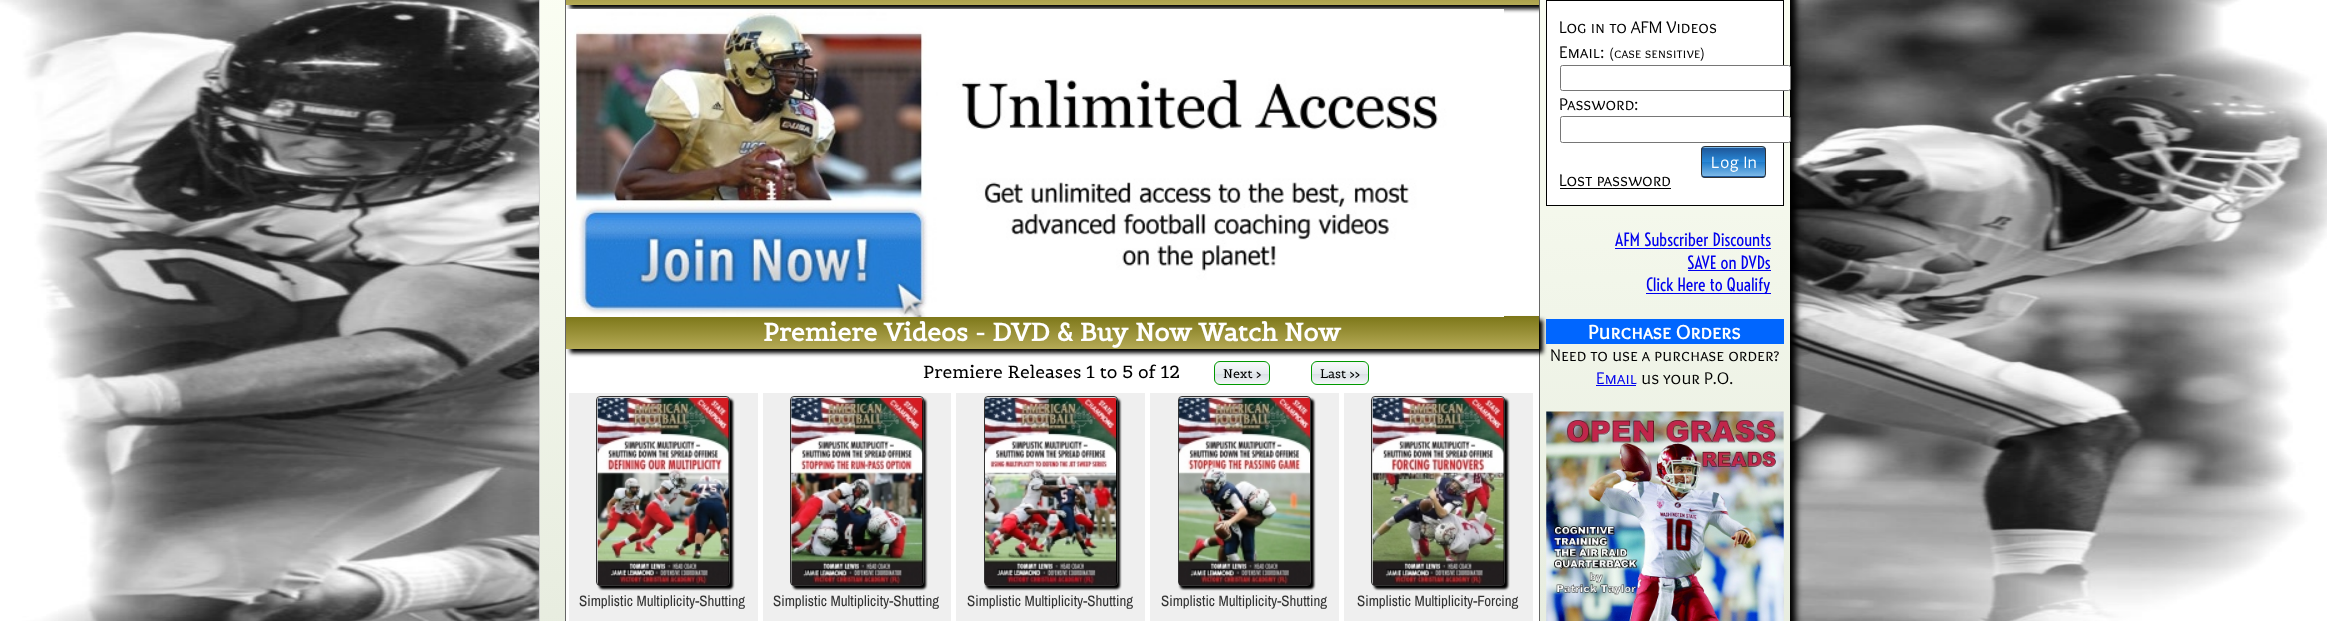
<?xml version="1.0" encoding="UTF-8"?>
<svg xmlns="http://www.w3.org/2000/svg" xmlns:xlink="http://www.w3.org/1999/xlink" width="2327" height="621">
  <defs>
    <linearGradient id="g1" gradientUnits="userSpaceOnUse" x1="1165" y1="-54" x2="1165" y2="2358"><stop offset="0" stop-color="#fcfff4" /><stop offset="0.4" stop-color="#dfe5d7" /><stop offset="1" stop-color="#b3bead" /></linearGradient>
    <clipPath id="clip1"><rect x="1701" y="146" width="65" height="32" rx="4" /></clipPath>
    <linearGradient id="g2" gradientUnits="userSpaceOnUse" x1="1734" y1="119" x2="1734" y2="148"><stop offset="0" stop-color="#1e5799" /><stop offset="0.5" stop-color="#2989d8" /><stop offset="0.51" stop-color="#207cca" /><stop offset="1" stop-color="#7db9e8" /></linearGradient>
    <linearGradient id="g3" gradientUnits="userSpaceOnUse" x1="1734" y1="148" x2="1734" y2="176"><stop offset="0" stop-color="#1e5799" /><stop offset="0.5" stop-color="#2989d8" /><stop offset="0.51" stop-color="#207cca" /><stop offset="1" stop-color="#7db9e8" /></linearGradient>
    <linearGradient id="g4" gradientUnits="userSpaceOnUse" x1="1734" y1="176" x2="1734" y2="205"><stop offset="0" stop-color="#1e5799" /><stop offset="0.5" stop-color="#2989d8" /><stop offset="0.51" stop-color="#207cca" /><stop offset="1" stop-color="#7db9e8" /></linearGradient>
    <clipPath id="clip2"><rect x="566" y="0" width="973" height="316" /></clipPath>
    <linearGradient id="g5" gradientUnits="userSpaceOnUse" x1="1053" y1="-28" x2="1053" y2="5"><stop offset="0" stop-color="#7c7618" /><stop offset="1" stop-color="#b5aa56" /></linearGradient>
    <linearGradient id="g6" gradientUnits="userSpaceOnUse" x1="1053" y1="316" x2="1053" y2="349"><stop offset="0" stop-color="#7c7618" /><stop offset="1" stop-color="#b5aa56" /></linearGradient>
    <clipPath id="clip3"><rect x="1214" y="361" width="56" height="24" rx="6" /></clipPath>
    <linearGradient id="g7" gradientUnits="userSpaceOnUse" x1="1242" y1="341" x2="1242" y2="363"><stop offset="0" stop-color="#f6f8f9" /><stop offset="0.5" stop-color="#e5ebee" /><stop offset="0.51" stop-color="#d7dee3" /><stop offset="1" stop-color="#f5f7f9" /></linearGradient>
    <linearGradient id="g8" gradientUnits="userSpaceOnUse" x1="1242" y1="363" x2="1242" y2="384"><stop offset="0" stop-color="#f6f8f9" /><stop offset="0.5" stop-color="#e5ebee" /><stop offset="0.51" stop-color="#d7dee3" /><stop offset="1" stop-color="#f5f7f9" /></linearGradient>
    <clipPath id="clip4"><rect x="1311" y="361" width="58" height="24" rx="6" /></clipPath>
    <linearGradient id="g9" gradientUnits="userSpaceOnUse" x1="1340" y1="341" x2="1340" y2="363"><stop offset="0" stop-color="#f6f8f9" /><stop offset="0.5" stop-color="#e5ebee" /><stop offset="0.51" stop-color="#d7dee3" /><stop offset="1" stop-color="#f5f7f9" /></linearGradient>
    <linearGradient id="g10" gradientUnits="userSpaceOnUse" x1="1340" y1="363" x2="1340" y2="384"><stop offset="0" stop-color="#f6f8f9" /><stop offset="0.5" stop-color="#e5ebee" /><stop offset="0.51" stop-color="#d7dee3" /><stop offset="1" stop-color="#f5f7f9" /></linearGradient>
  </defs>
  <rect width="100%" height="100%" fill="#ffffff" />
  <image x="0" y="0" width="2327" height="621" xlink:href="image1.png" />
  <rect x="545" y="-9" width="1251" height="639" fill="#000000" filter="blur(3px)" />
  <rect x="539" width="1" height="621" fill="#cccccc" />
  <rect x="540" width="1250" height="621" fill="url(#g1)" />
  <rect x="1546.5" y="0.5" width="237" height="205" fill="#ffffff" stroke="#000000" />
  <rect x="1560.5" y="65.5" width="230" height="25" rx="2" fill="#ffffff" stroke="#767676" />
  <rect x="1560.5" y="116.5" width="230" height="26" rx="2" fill="#ffffff" stroke="#767676" />
  <g clip-path="url(#clip1)">
    <rect x="1701" y="146" width="65" height="2" fill="url(#g2)" />
    <rect x="1701" y="148" width="65" height="28" fill="url(#g3)" />
    <rect x="1701" y="176" width="65" height="2" fill="url(#g4)" />
  </g>
  <rect x="1701.5" y="146.5" width="64" height="31" rx="3.5" fill="none" stroke="#333333" />
  <rect x="1560" y="188" width="111" height="1" fill="#000000" />
  <rect x="1615" y="248" width="156" height="1" fill="#0000ee" />
  <rect x="1688" y="270" width="83" height="1" fill="#0000ee" />
  <rect x="1646" y="293" width="125" height="1" fill="#0000ee" />
  <rect x="566" y="5" width="973" height="616" fill="#ffffff" />
  <rect x="565.5" y="-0.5" width="974" height="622" fill="none" stroke="#666666" />
  <rect x="570" y="320" width="973" height="33" fill="#000000" filter="blur(2px)" />
  <rect x="1546" y="319" width="238" height="25" fill="#0066ff" />
  <rect x="1596" y="385" width="40" height="1" fill="#0000ee" />
  <image x="1546" y="411" width="238" height="210" xlink:href="image2.png" />
  <g clip-path="url(#clip2)">
    <rect x="570" y="-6" width="973" height="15" fill="#000000" filter="blur(2px)" />
  </g>
  <rect x="566" width="973" height="5" fill="url(#g5)" />
  <rect x="566" y="316" width="973" height="33" fill="url(#g6)" />
  <image x="566" y="9" width="938" height="308" xlink:href="image3.png" />
  <g clip-path="url(#clip3)">
    <rect x="1214" y="361" width="56" height="2" fill="url(#g7)" />
    <rect x="1214" y="363" width="56" height="21" fill="url(#g8)" />
  </g>
  <rect x="1214.5" y="361.5" width="55" height="23" rx="5.5" fill="none" stroke="#009900" />
  <g clip-path="url(#clip4)">
    <rect x="1311" y="361" width="58" height="2" fill="url(#g9)" />
    <rect x="1311" y="363" width="58" height="21" fill="url(#g10)" />
  </g>
  <rect x="1311.5" y="361.5" width="57" height="23" rx="5.5" fill="none" stroke="#009900" />
  <rect x="569" y="393" width="189" height="228" fill="#efefef" />
  <rect x="599" y="399" width="134" height="190" rx="4" fill="#000000" filter="blur(1px)" />
  <rect x="596.5" y="396.5" width="133" height="189" rx="3.5" fill="none" stroke="#333333" />
  <image x="597" y="397" width="132" height="188" xlink:href="image4.png" />
  <rect x="763" y="393" width="188" height="228" fill="#efefef" />
  <rect x="793" y="399" width="133" height="190" rx="4" fill="#000000" filter="blur(1px)" />
  <rect x="790.5" y="396.5" width="133" height="189" rx="3.5" fill="none" stroke="#333333" />
  <image x="791" y="397" width="132" height="188" xlink:href="image5.png" />
  <rect x="956" y="393" width="189" height="228" fill="#efefef" />
  <rect x="986" y="399" width="134" height="190" rx="4" fill="#000000" filter="blur(1px)" />
  <rect x="984.5" y="396.5" width="133" height="189" rx="3.5" fill="none" stroke="#333333" />
  <image x="985" y="397" width="132" height="188" xlink:href="image6.png" />
  <rect x="1150" y="393" width="189" height="228" fill="#efefef" />
  <rect x="1180" y="399" width="134" height="190" rx="4" fill="#000000" filter="blur(1px)" />
  <rect x="1178.5" y="396.5" width="132" height="189" rx="3.5" fill="none" stroke="#333333" />
  <image x="1178" y="397" width="132" height="188" xlink:href="image7.png" />
  <rect x="1344" y="393" width="189" height="228" fill="#efefef" />
  <rect x="1374" y="399" width="134" height="190" rx="4" fill="#000000" filter="blur(1px)" />
  <rect x="1371.5" y="396.5" width="133" height="189" rx="3.5" fill="none" stroke="#333333" />
  <image x="1372" y="397" width="132" height="188" xlink:href="image8.png" />
  <text x="1559" y="33" style="font-family: Overlock SC; font-size: 17.5px; fill: #000000">Log in to AFM Videos</text>
  <text x="1559" y="58" style="font-family: Overlock SC; font-size: 17.5px; fill: #000000">Email:</text>
  <text x="1609" y="58" style="font-family: Overlock SC; font-size: 14.5px; fill: #000000">(case sensitive)</text>
  <text x="1559" y="110" style="font-family: Overlock SC; font-size: 17.5px; fill: #000000">Password:</text>
  <text x="1711" y="168" style="font-family: Duru Sans; font-size: 15px; fill: #ffffff">Log In</text>
  <text x="1559" y="186" style="font-family: Overlock SC; font-size: 17.5px; fill: #000000">Lost password</text>
  <text x="1615" y="246" style="font-family: Voltaire; font-size: 17.5px; fill: #0000ee">AFM Subscriber Discounts</text>
  <text x="1687" y="269" style="font-family: Voltaire; font-size: 17.5px; fill: #0000ee">SAVE on DVDs</text>
  <text x="1646" y="291" style="font-family: Voltaire; font-size: 17.5px; fill: #0000ee">Click Here to Qualify</text>
  <text x="1588" y="339" style="font-family: Overlock SC; font-size: 20.5px; font-weight: bold; fill: #ffffff">Purchase Orders</text>
  <text x="1550" y="361" style="font-family: Overlock SC; font-size: 17.5px; fill: #000000">Need to use a purchase order?</text>
  <text x="1596" y="384" style="font-family: Overlock SC; font-size: 17.5px; fill: #0000ee">Email</text>
  <text x="1641" y="384" style="font-family: Overlock SC; font-size: 17.5px; fill: #000000">us your P.O.</text>
  <text x="763" y="341" style="font-family: Belgrano; font-size: 25px; font-weight: bold; fill: #ffffff">Premiere Videos - DVD &amp; Buy Now Watch Now</text>
  <text x="923" y="378" style="font-family: Belgrano; font-size: 17.5px; fill: #000000">Premiere Releases 1 to 5 of 12</text>
  <text x="1223" y="378" style="font-family: Belgrano; font-size: 12.5px; fill: #000000">Next &gt;</text>
  <text x="1320" y="378" style="font-family: Belgrano; font-size: 12.5px; fill: #000000">Last &gt;&gt;</text>
  <text x="579" y="606" style="font-family: Archivo Narrow; font-size: 15px; fill: #333333">Simplistic Multiplicity-Shutting</text>
  <text x="773" y="606" style="font-family: Archivo Narrow; font-size: 15px; fill: #333333">Simplistic Multiplicity-Shutting</text>
  <text x="967" y="606" style="font-family: Archivo Narrow; font-size: 15px; fill: #333333">Simplistic Multiplicity-Shutting</text>
  <text x="1161" y="606" style="font-family: Archivo Narrow; font-size: 15px; fill: #333333">Simplistic Multiplicity-Shutting</text>
  <text x="1357" y="606" style="font-family: Archivo Narrow; font-size: 15px; fill: #333333">Simplistic Multiplicity-Forcing</text>
</svg>
